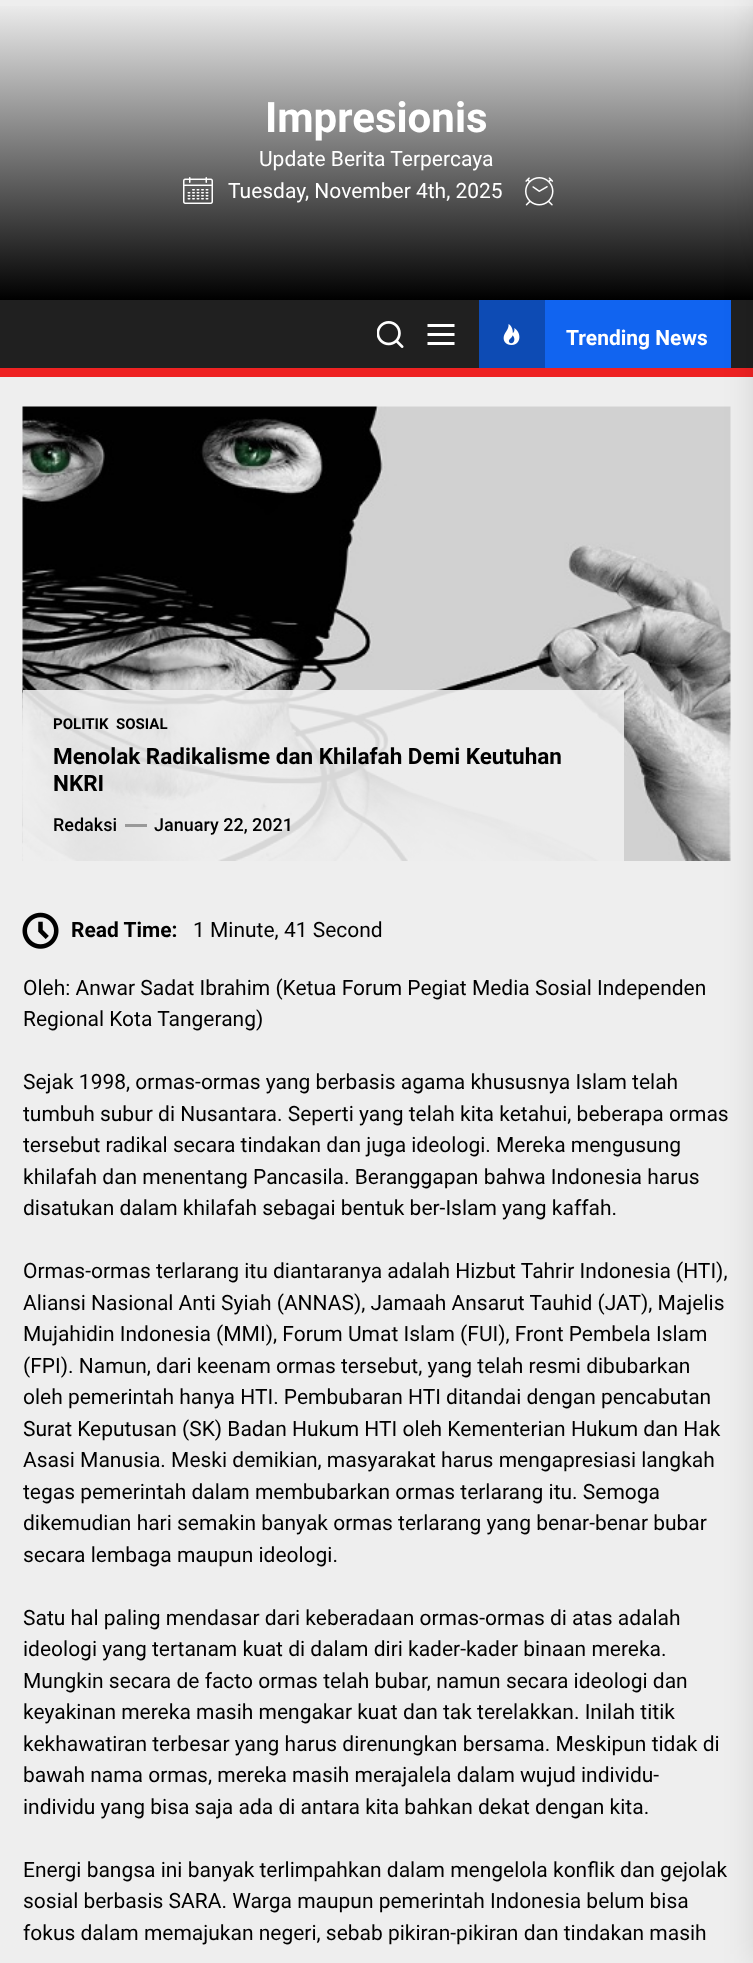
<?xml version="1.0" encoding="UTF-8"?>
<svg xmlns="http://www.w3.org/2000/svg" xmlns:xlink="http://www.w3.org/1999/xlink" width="753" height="1963">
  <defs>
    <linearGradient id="g1" gradientUnits="userSpaceOnUse" x1="377" y1="0" x2="377" y2="300"><stop offset="0" stop-color="#f0f0f0" /><stop offset="1" stop-color="#000000" /></linearGradient>
  </defs>
  <rect width="100%" height="100%" fill="#eeeeee" />
  <rect y="6" width="753" height="294" fill="url(#g1)" />
  <image x="183" y="177" width="30" height="27" xlink:href="image1.png" />
  <image x="525" y="177" width="29" height="29" xlink:href="image2.png" />
  <rect y="300" width="753" height="68" fill="#202020" />
  <image x="377" y="321" width="27" height="27" xlink:href="image3.png" />
  <image x="427" y="324" width="28" height="21" xlink:href="image4.png" />
  <rect x="545" y="300" width="186" height="68" fill="#1164f0" />
  <rect x="479" y="300" width="66" height="68" fill="#0d4bb4" />
  <image x="503" y="324" width="17" height="21" xlink:href="image5.png" />
  <rect y="368" width="753" height="9" fill="#ee2222" />
  <image x="22" y="406" width="709" height="455" xlink:href="image6.png" />
  <rect x="753" width="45" height="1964" fill="#000000" fill-opacity="0.1" filter="blur(15px)" />
  <rect x="23" y="690" width="601" height="171" fill="#eeeeee" fill-opacity="0.9" />
  <rect x="125" y="824" width="22" height="3" fill="#999999" />
  <image x="22" y="912" width="37" height="37" xlink:href="image7.png" />
  <text x="265" y="132" style="font-family: Roboto; font-size: 42px; font-weight: bold; fill: #ffffff">Impresionis</text>
  <text x="259" y="166" style="font-family: Roboto; font-size: 21px; fill: #ffffff">Update Berita Terpercaya</text>
  <text x="228" y="198" style="font-family: Roboto; font-size: 21px; fill: #ffffff">Tuesday, November 4th, 2025</text>
  <text x="566" y="345" style="font-family: Roboto; font-size: 21px; font-weight: bold; fill: #ffffff">Trending News</text>
  <text x="53" y="729" style="font-family: Roboto; font-size: 15px; font-weight: bold; fill: #000000">POLITIK</text>
  <text x="116" y="729" style="font-family: Roboto; font-size: 15px; font-weight: bold; fill: #000000">SOSIAL</text>
  <text x="53" y="764" style="font-family: Roboto; font-size: 22.5px; font-weight: bold; fill: #000000">Menolak Radikalisme dan Khilafah Demi Keutuhan</text>
  <text x="53" y="791" style="font-family: Roboto; font-size: 22.5px; font-weight: bold; fill: #000000">NKRI</text>
  <text x="53" y="831" style="font-family: Roboto; font-size: 18px; font-weight: 500; fill: #000000">Redaksi</text>
  <text x="154" y="831" style="font-family: Roboto; font-size: 18px; font-weight: 500; fill: #000000">January 22, 2021</text>
  <text x="71" y="937" style="font-family: Roboto; font-size: 21px; font-weight: bold; fill: #000000">Read Time:</text>
  <text x="193" y="937" style="font-family: Roboto; font-size: 21px; fill: #000000">1 Minute, 41 Second</text>
  <text x="23" y="995" style="font-family: Roboto; font-size: 21px; fill: #000000">Oleh: Anwar Sadat Ibrahim (Ketua Forum Pegiat Media Sosial Independen</text>
  <text x="23" y="1026" style="font-family: Roboto; font-size: 21px; fill: #000000">Regional Kota Tangerang)</text>
  <text x="23" y="1089" style="font-family: Roboto; font-size: 21px; fill: #000000">Sejak 1998, ormas-ormas yang berbasis agama khususnya Islam telah</text>
  <text x="23" y="1121" style="font-family: Roboto; font-size: 21px; fill: #000000">tumbuh subur di Nusantara. Seperti yang telah kita ketahui, beberapa ormas</text>
  <text x="23" y="1152" style="font-family: Roboto; font-size: 21px; fill: #000000">tersebut radikal secara tindakan dan juga ideologi. Mereka mengusung</text>
  <text x="23" y="1184" style="font-family: Roboto; font-size: 21px; fill: #000000">khilafah dan menentang Pancasila. Beranggapan bahwa Indonesia harus</text>
  <text x="23" y="1215" style="font-family: Roboto; font-size: 21px; fill: #000000">disatukan dalam khilafah sebagai bentuk ber-Islam yang kaffah.</text>
  <text x="23" y="1278" style="font-family: Roboto; font-size: 21px; fill: #000000">Ormas-ormas terlarang itu diantaranya adalah Hizbut Tahrir Indonesia (HTI),</text>
  <text x="23" y="1310" style="font-family: Roboto; font-size: 21px; fill: #000000">Aliansi Nasional Anti Syiah (ANNAS), Jamaah Ansarut Tauhid (JAT), Majelis</text>
  <text x="23" y="1341" style="font-family: Roboto; font-size: 21px; fill: #000000">Mujahidin Indonesia (MMI), Forum Umat Islam (FUI), Front Pembela Islam</text>
  <text x="23" y="1373" style="font-family: Roboto; font-size: 21px; fill: #000000">(FPI). Namun, dari keenam ormas tersebut, yang telah resmi dibubarkan</text>
  <text x="23" y="1404" style="font-family: Roboto; font-size: 21px; fill: #000000">oleh pemerintah hanya HTI. Pembubaran HTI ditandai dengan pencabutan</text>
  <text x="23" y="1436" style="font-family: Roboto; font-size: 21px; fill: #000000">Surat Keputusan (SK) Badan Hukum HTI oleh Kementerian Hukum dan Hak</text>
  <text x="23" y="1467" style="font-family: Roboto; font-size: 21px; fill: #000000">Asasi Manusia. Meski demikian, masyarakat harus mengapresiasi langkah</text>
  <text x="23" y="1499" style="font-family: Roboto; font-size: 21px; fill: #000000">tegas pemerintah dalam membubarkan ormas terlarang itu. Semoga</text>
  <text x="23" y="1530" style="font-family: Roboto; font-size: 21px; fill: #000000">dikemudian hari semakin banyak ormas terlarang yang benar-benar bubar</text>
  <text x="23" y="1562" style="font-family: Roboto; font-size: 21px; fill: #000000">secara lembaga maupun ideologi.</text>
  <text x="23" y="1625" style="font-family: Roboto; font-size: 21px; fill: #000000">Satu hal paling mendasar dari keberadaan ormas-ormas di atas adalah</text>
  <text x="23" y="1656" style="font-family: Roboto; font-size: 21px; fill: #000000">ideologi yang tertanam kuat di dalam diri kader-kader binaan mereka.</text>
  <text x="23" y="1688" style="font-family: Roboto; font-size: 21px; fill: #000000">Mungkin secara de facto ormas telah bubar, namun secara ideologi dan</text>
  <text x="23" y="1719" style="font-family: Roboto; font-size: 21px; fill: #000000">keyakinan mereka masih mengakar kuat dan tak terelakkan. Inilah titik</text>
  <text x="23" y="1751" style="font-family: Roboto; font-size: 21px; fill: #000000">kekhawatiran terbesar yang harus direnungkan bersama. Meskipun tidak di</text>
  <text x="23" y="1782" style="font-family: Roboto; font-size: 21px; fill: #000000">bawah nama ormas, mereka masih merajalela dalam wujud individu-</text>
  <text x="23" y="1814" style="font-family: Roboto; font-size: 21px; fill: #000000">individu yang bisa saja ada di antara kita bahkan dekat dengan kita.</text>
  <text x="23" y="1877" style="font-family: Roboto; font-size: 21px; fill: #000000">Energi bangsa ini banyak terlimpahkan dalam mengelola konflik dan gejolak</text>
  <text x="23" y="1908" style="font-family: Roboto; font-size: 21px; fill: #000000">sosial berbasis SARA. Warga maupun pemerintah Indonesia belum bisa</text>
  <text x="23" y="1940" style="font-family: Roboto; font-size: 21px; fill: #000000">fokus dalam memajukan negeri, sebab pikiran-pikiran dan tindakan masih</text>
</svg>
